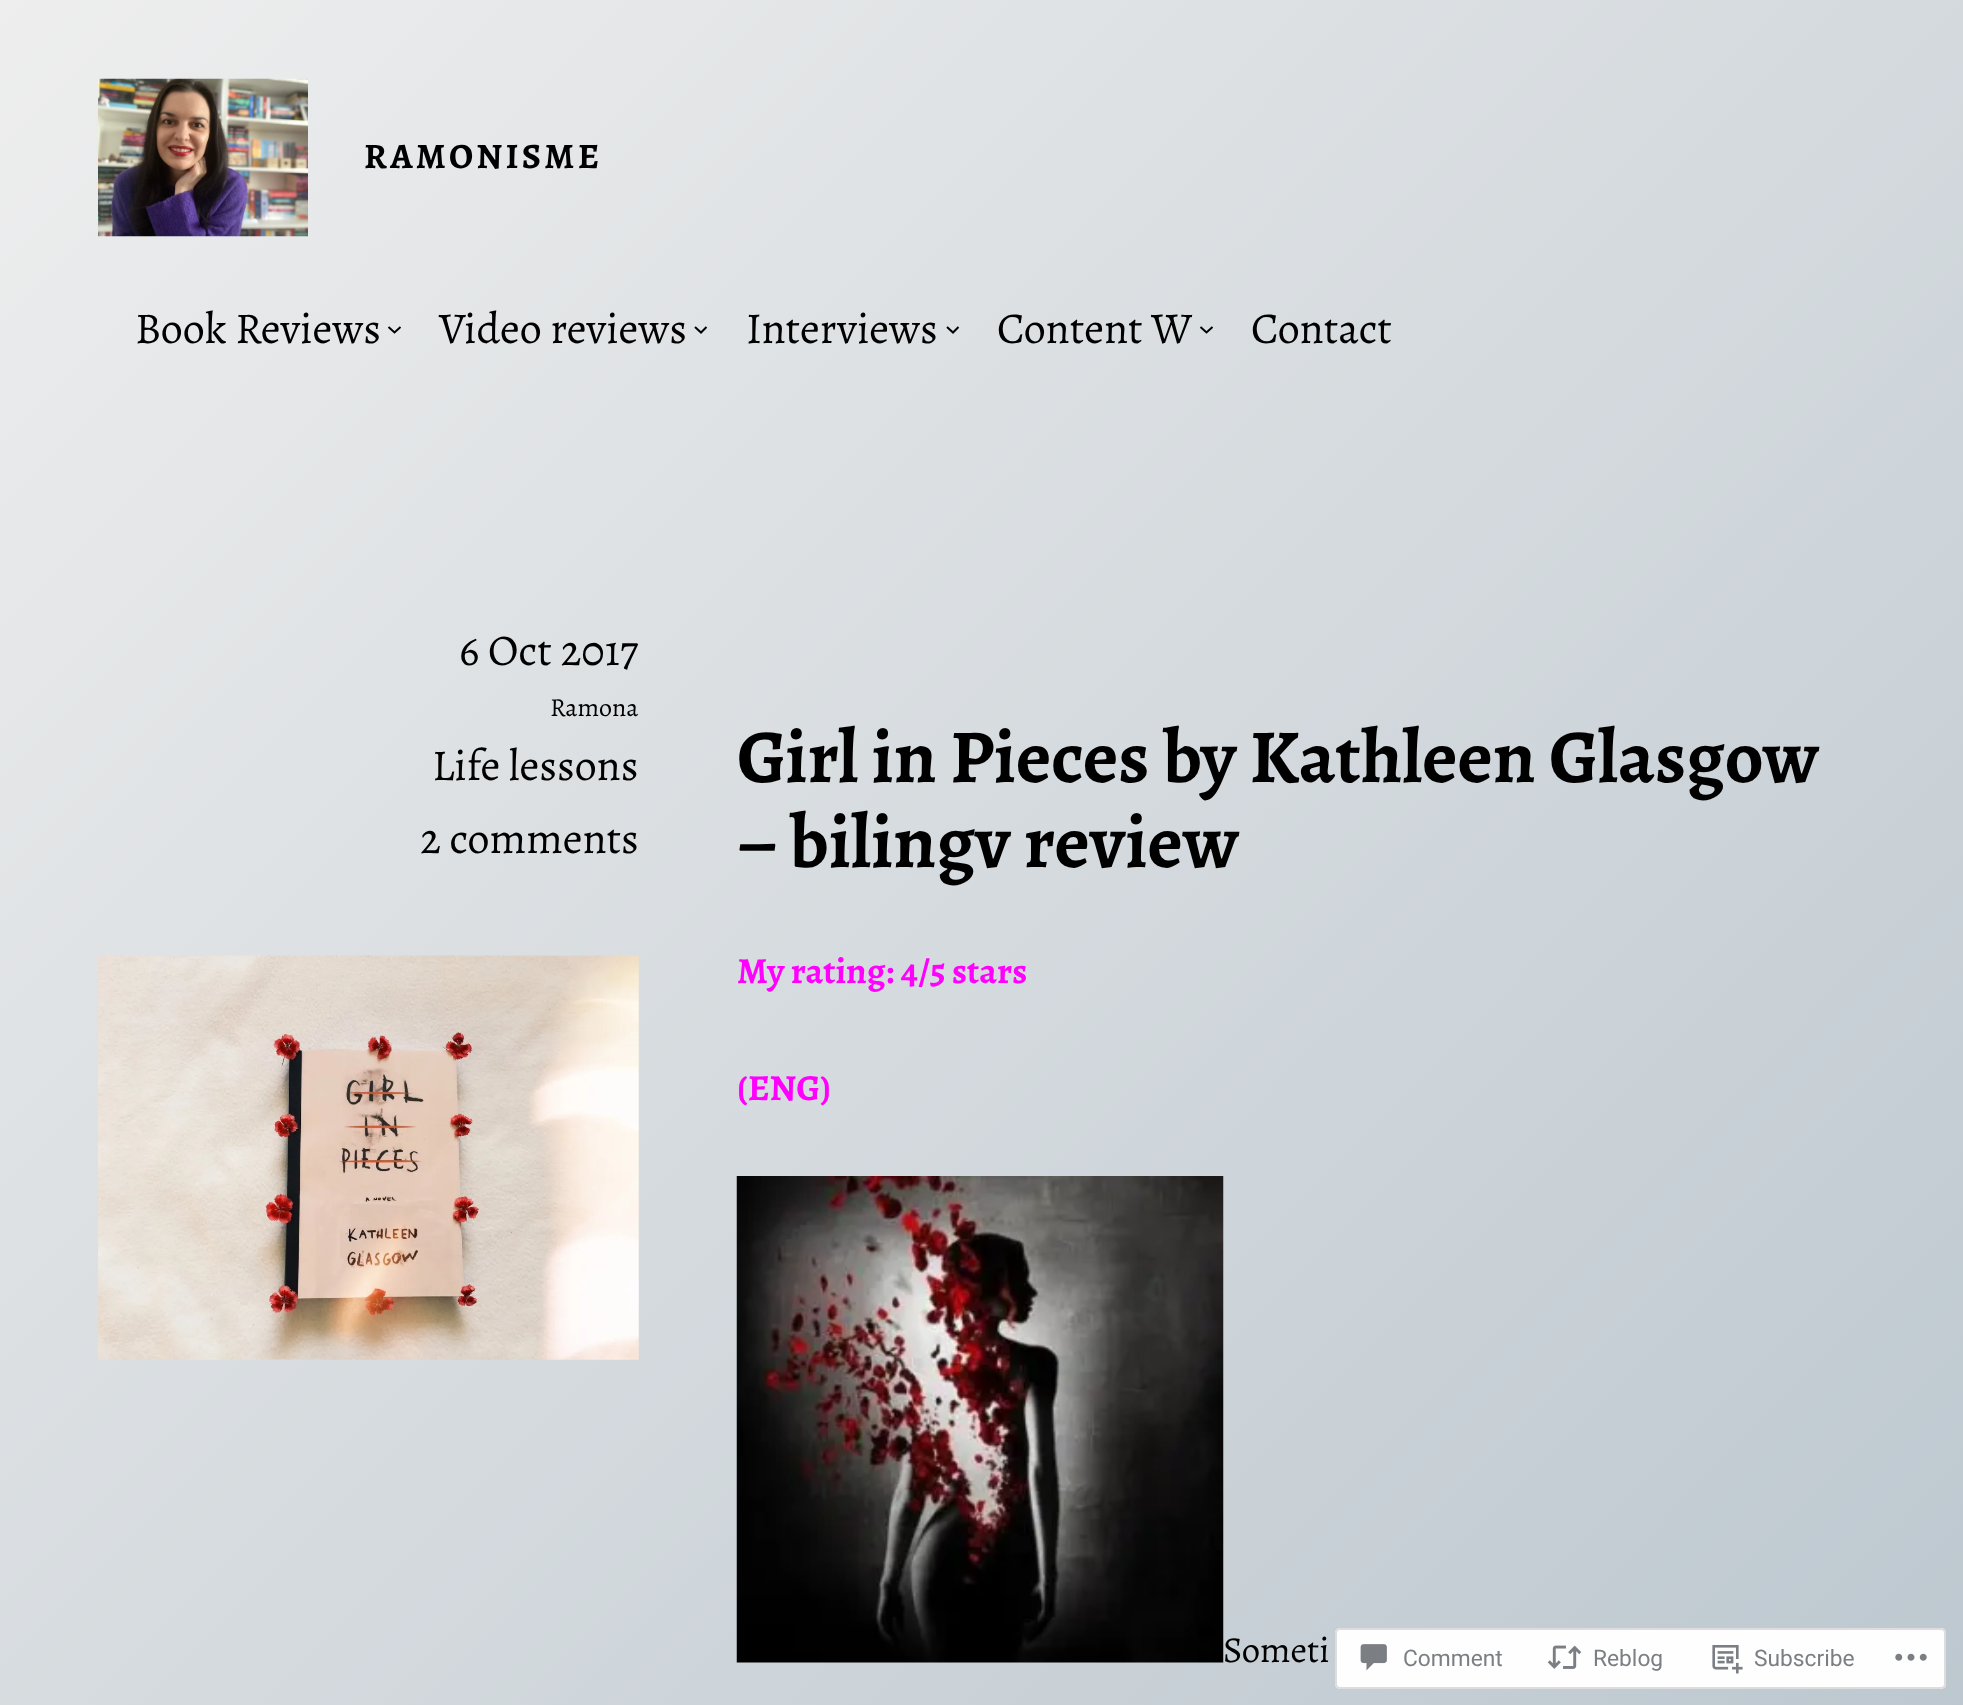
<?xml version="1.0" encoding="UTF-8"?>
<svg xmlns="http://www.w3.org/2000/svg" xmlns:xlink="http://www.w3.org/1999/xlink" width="1963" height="1705">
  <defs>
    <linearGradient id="g1" gradientUnits="userSpaceOnUse" x1="-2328" y1="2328" x2="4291" y2="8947"><stop offset="0" stop-color="#eeeeee" /><stop offset="0.39" stop-color="#a9b8c3" /></linearGradient>
  </defs>
  <rect width="100%" height="100%" fill="#ffffff" />
  <rect width="1963" height="1705" fill="url(#g1)" />
  <image x="98" y="78" width="210" height="159" xlink:href="image1.png" />
  <path d="M 388.5 327 l 6 5.5 l 6 -5.5" fill="none" stroke="#000000" stroke-width="2" />
  <path d="M 695 327 l 6 5.5 l 5.5 -5.5" fill="none" stroke="#000000" stroke-width="2" />
  <path d="M 947 327 l 6 5.5 l 5.5 -5.5" fill="none" stroke="#000000" stroke-width="2" />
  <path d="M 1200.5 327 l 6 5.5 l 6 -5.5" fill="none" stroke="#000000" stroke-width="2" />
  <image x="98" y="955" width="541" height="405" xlink:href="image2.png" />
  <image x="736" y="1176" width="488" height="487" xlink:href="image3.png" />
  <rect x="1335" y="1628" width="611" height="61" rx="5" fill="#ffffff" fill-opacity="0.98" />
  <rect x="1336" y="1629" width="609" height="59" rx="4" fill="none" stroke="#dcdcde" stroke-opacity="0.98" stroke-width="2" />
  <image x="1360" y="1644" width="27" height="27" xlink:href="image4.png" />
  <image x="1547" y="1645" width="35" height="24" xlink:href="image5.png" />
  <image x="1712" y="1645" width="31" height="29" xlink:href="image6.png" />
  <image x="1895" y="1653" width="32" height="8" xlink:href="image7.png" />
  <text x="364" y="168" style="font-family: Alegreya; font-size: 35.75px; font-weight: bold; letter-spacing: 3.25px; fill: #000000">RAMONISME</text>
  <text x="135" y="343" style="font-family: Alegreya; font-size: 44px; fill: #000000">Book Reviews</text>
  <text x="439" y="343" style="font-family: Alegreya; font-size: 44px; fill: #000000">Video reviews</text>
  <text x="746" y="343" style="font-family: Alegreya; font-size: 44px; fill: #000000">Interviews</text>
  <text x="997" y="343" style="font-family: Alegreya; font-size: 44px; fill: #000000">Content W</text>
  <text x="1251" y="343" style="font-family: Alegreya; font-size: 44px; fill: #000000">Contact</text>
  <text x="459" y="665" style="font-family: Alegreya; font-size: 44px; fill: #000000">6 Oct 2017</text>
  <text x="550" y="716" style="font-family: Alegreya; font-size: 26px; fill: #000000">Ramona</text>
  <text x="432" y="780" style="font-family: Alegreya; font-size: 44px; fill: #000000">Life lessons</text>
  <text x="420" y="853" style="font-family: Alegreya; font-size: 44px; fill: #000000">2 comments</text>
  <text x="737" y="782" style="font-family: Alegreya; font-size: 76.25px; font-weight: bold; fill: #000000">Girl in Pieces by Kathleen Glasgow</text>
  <text x="737" y="867" style="font-family: Alegreya; font-size: 76.25px; font-weight: bold; fill: #000000">– bilingv review</text>
  <text x="737" y="983" style="font-family: Alegreya; font-size: 36.75px; font-weight: bold; fill: #ff00ff">My rating: 4/5 stars</text>
  <text x="737" y="1100" style="font-family: Alegreya; font-size: 36.75px; font-weight: bold; fill: #ff00ff">(ENG)</text>
  <text x="1223" y="1662" word-spacing="5" style="font-family: Alegreya; font-size: 36.75px; fill: #000000">Someti</text>
  <text x="1403" y="1666" style="font-family: Roboto; font-size: 22.75px; fill: #7b7f84">Comment</text>
  <text x="1593" y="1666" style="font-family: Roboto; font-size: 22.75px; fill: #7b7f84">Reblog</text>
  <text x="1754" y="1666" style="font-family: Roboto; font-size: 22.75px; fill: #7b7f84">Subscribe</text>
</svg>
